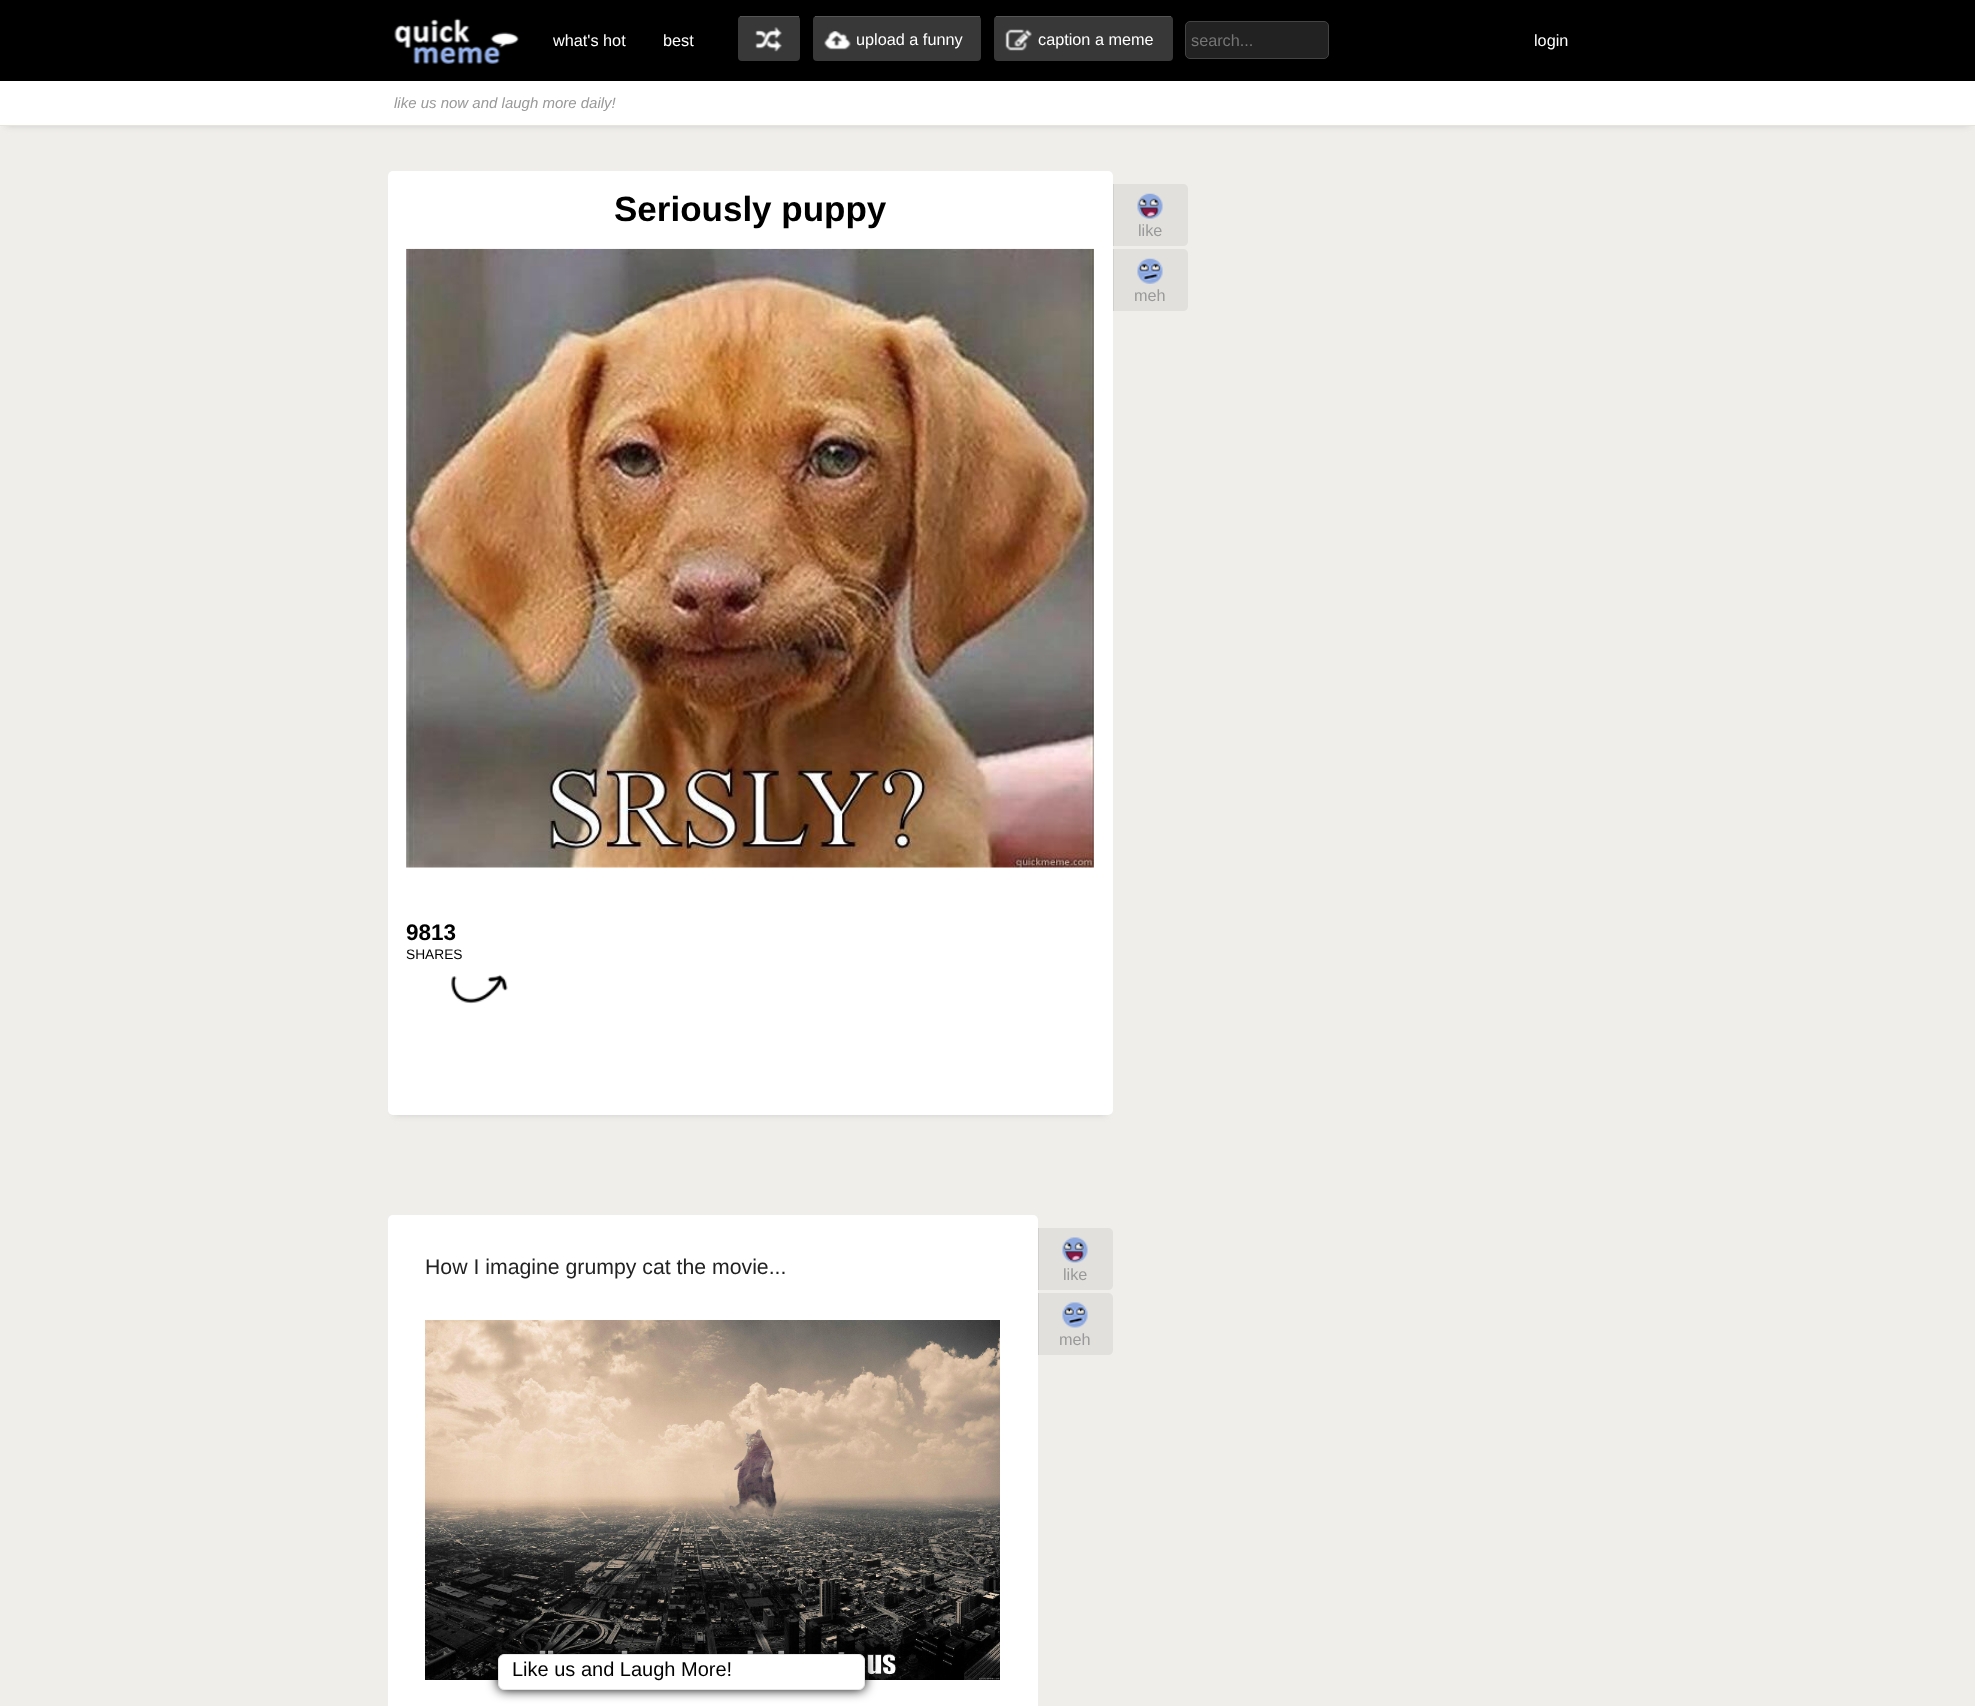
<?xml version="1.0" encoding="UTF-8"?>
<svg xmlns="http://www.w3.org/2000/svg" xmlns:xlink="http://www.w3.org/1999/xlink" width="1975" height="1706">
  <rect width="100%" height="100%" fill="#efeeea" />
  <rect width="1975" height="81" fill="#000000" />
  <image x="394" y="18" width="126" height="46" xlink:href="image1.png" />
  <rect x="738" y="16" width="62" height="45" rx="4" fill="#383838" />
  <image x="755" y="27" width="27" height="25" xlink:href="image2.png" />
  <rect x="740" y="16" width="59" height="1" fill="#555555" />
  <rect x="813" y="16" width="168" height="45" rx="4" fill="#383838" />
  <image x="824" y="31" width="27" height="19" xlink:href="image3.png" />
  <rect x="815" y="16" width="165" height="1" fill="#555555" />
  <rect x="994" y="16" width="179" height="45" rx="4" fill="#383838" />
  <image x="1005" y="29" width="27" height="22" xlink:href="image4.png" />
  <rect x="996" y="16" width="175" height="1" fill="#555555" />
  <rect x="1185.5" y="21.5" width="143" height="37" rx="4.5" fill="#222222" stroke="#444444" />
  <rect x="6" y="94" width="1963" height="32" fill="#cccccc" filter="blur(3px)" />
  <rect y="81" width="1975" height="44" fill="#ffffff" />
  <rect y="125" width="1975" height="1" fill="#e7e4da" />
  <rect x="394" y="184" width="712" height="931" fill="#cccccc" filter="blur(3px)" />
  <rect x="388" y="171" width="725" height="944" rx="5" fill="#ffffff" />
  <image x="406" y="248" width="688" height="620" xlink:href="image5.png" />
  <path d="M 1113 184 h 70 c 3 0 5 2 5 5 v 52 c 0 3 -2 5 -5 5 h -70 z" fill="#e1e0dd" />
  <image x="1137" y="193" width="26" height="26" xlink:href="image6.png" />
  <rect x="1113" y="184" width="1" height="62" fill="#d1d0ce" />
  <path d="M 1113 249 h 70 c 3 0 5 2 5 5 v 52 c 0 3 -2 5 -5 5 h -70 z" fill="#e1e0dd" />
  <image x="1137" y="258" width="26" height="26" xlink:href="image7.png" />
  <rect x="1113" y="249" width="1" height="62" fill="#d1d0ce" />
  <image x="451" y="974" width="57" height="30" xlink:href="image8.png" />
  <rect x="388" y="1215" width="650" height="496" rx="5" fill="#ffffff" />
  <path d="M 1038 1228 h 70 c 3 0 5 2 5 5 v 52 c 0 3 -2 5 -5 5 h -70 z" fill="#e1e0dd" />
  <image x="1062" y="1237" width="26" height="26" xlink:href="image9.png" />
  <rect x="1038" y="1228" width="1" height="62" fill="#d1d0ce" />
  <path d="M 1038 1293 h 70 c 3 0 5 2 5 5 v 52 c 0 3 -2 5 -5 5 h -70 z" fill="#e1e0dd" />
  <image x="1062" y="1302" width="26" height="26" xlink:href="image10.png" />
  <rect x="1038" y="1293" width="1" height="62" fill="#d1d0ce" />
  <image x="425" y="1320" width="575" height="360" xlink:href="image11.png" />
  <rect x="498" y="1654" width="367" height="36" rx="6" fill="#000000" filter="blur(6px)" />
  <rect x="498.5" y="1654.5" width="366" height="35" rx="5.5" fill="#ffffff" stroke="#e6e6e6" />
  <text x="553" y="46" style="font-family: Liberation Sans; font-size: 16.25px; fill: #ffffff">what's hot</text>
  <text x="663" y="46" style="font-family: Liberation Sans; font-size: 16.25px; fill: #ffffff">best</text>
  <text x="856" y="45" style="font-family: Liberation Sans; font-size: 16.25px; fill: #ffffff">upload a funny</text>
  <text x="1038" y="45" style="font-family: Liberation Sans; font-size: 16.25px; fill: #ffffff">caption a meme</text>
  <text x="1191" y="46" style="font-family: Liberation Sans; font-size: 16.25px; fill: #757575">search...</text>
  <text x="1534" y="46" style="font-family: Liberation Sans; font-size: 16.25px; fill: #ffffff">login</text>
  <text x="394" y="108" style="font-family: Liberation Sans; font-size: 15px; font-style: italic; fill: #999999">like us now and laugh more daily!</text>
  <text x="614" y="221" style="font-family: Liberation Sans; font-size: 35px; font-weight: bold; fill: #000000">Seriously puppy</text>
  <text x="1138" y="236" style="font-family: Liberation Sans; font-size: 16.25px; fill: #999999">like</text>
  <text x="1134" y="301" style="font-family: Liberation Sans; font-size: 16.25px; fill: #999999">meh</text>
  <text x="406" y="940" style="font-family: Liberation Sans; font-size: 22.5px; font-weight: bold; fill: #000000">9813</text>
  <text x="406" y="959" style="font-family: Liberation Sans; font-size: 13.75px; fill: #000000">SHARES</text>
  <text x="425" y="1274" style="font-family: Liberation Sans; font-size: 21.25px; fill: #222222">How I imagine grumpy cat the movie...</text>
  <text x="1063" y="1280" style="font-family: Liberation Sans; font-size: 16.25px; fill: #999999">like</text>
  <text x="1059" y="1345" style="font-family: Liberation Sans; font-size: 16.25px; fill: #999999">meh</text>
  <text x="512" y="1676" style="font-family: Liberation Sans; font-size: 20px; fill: #000000">Like us and Laugh More!</text>
</svg>
